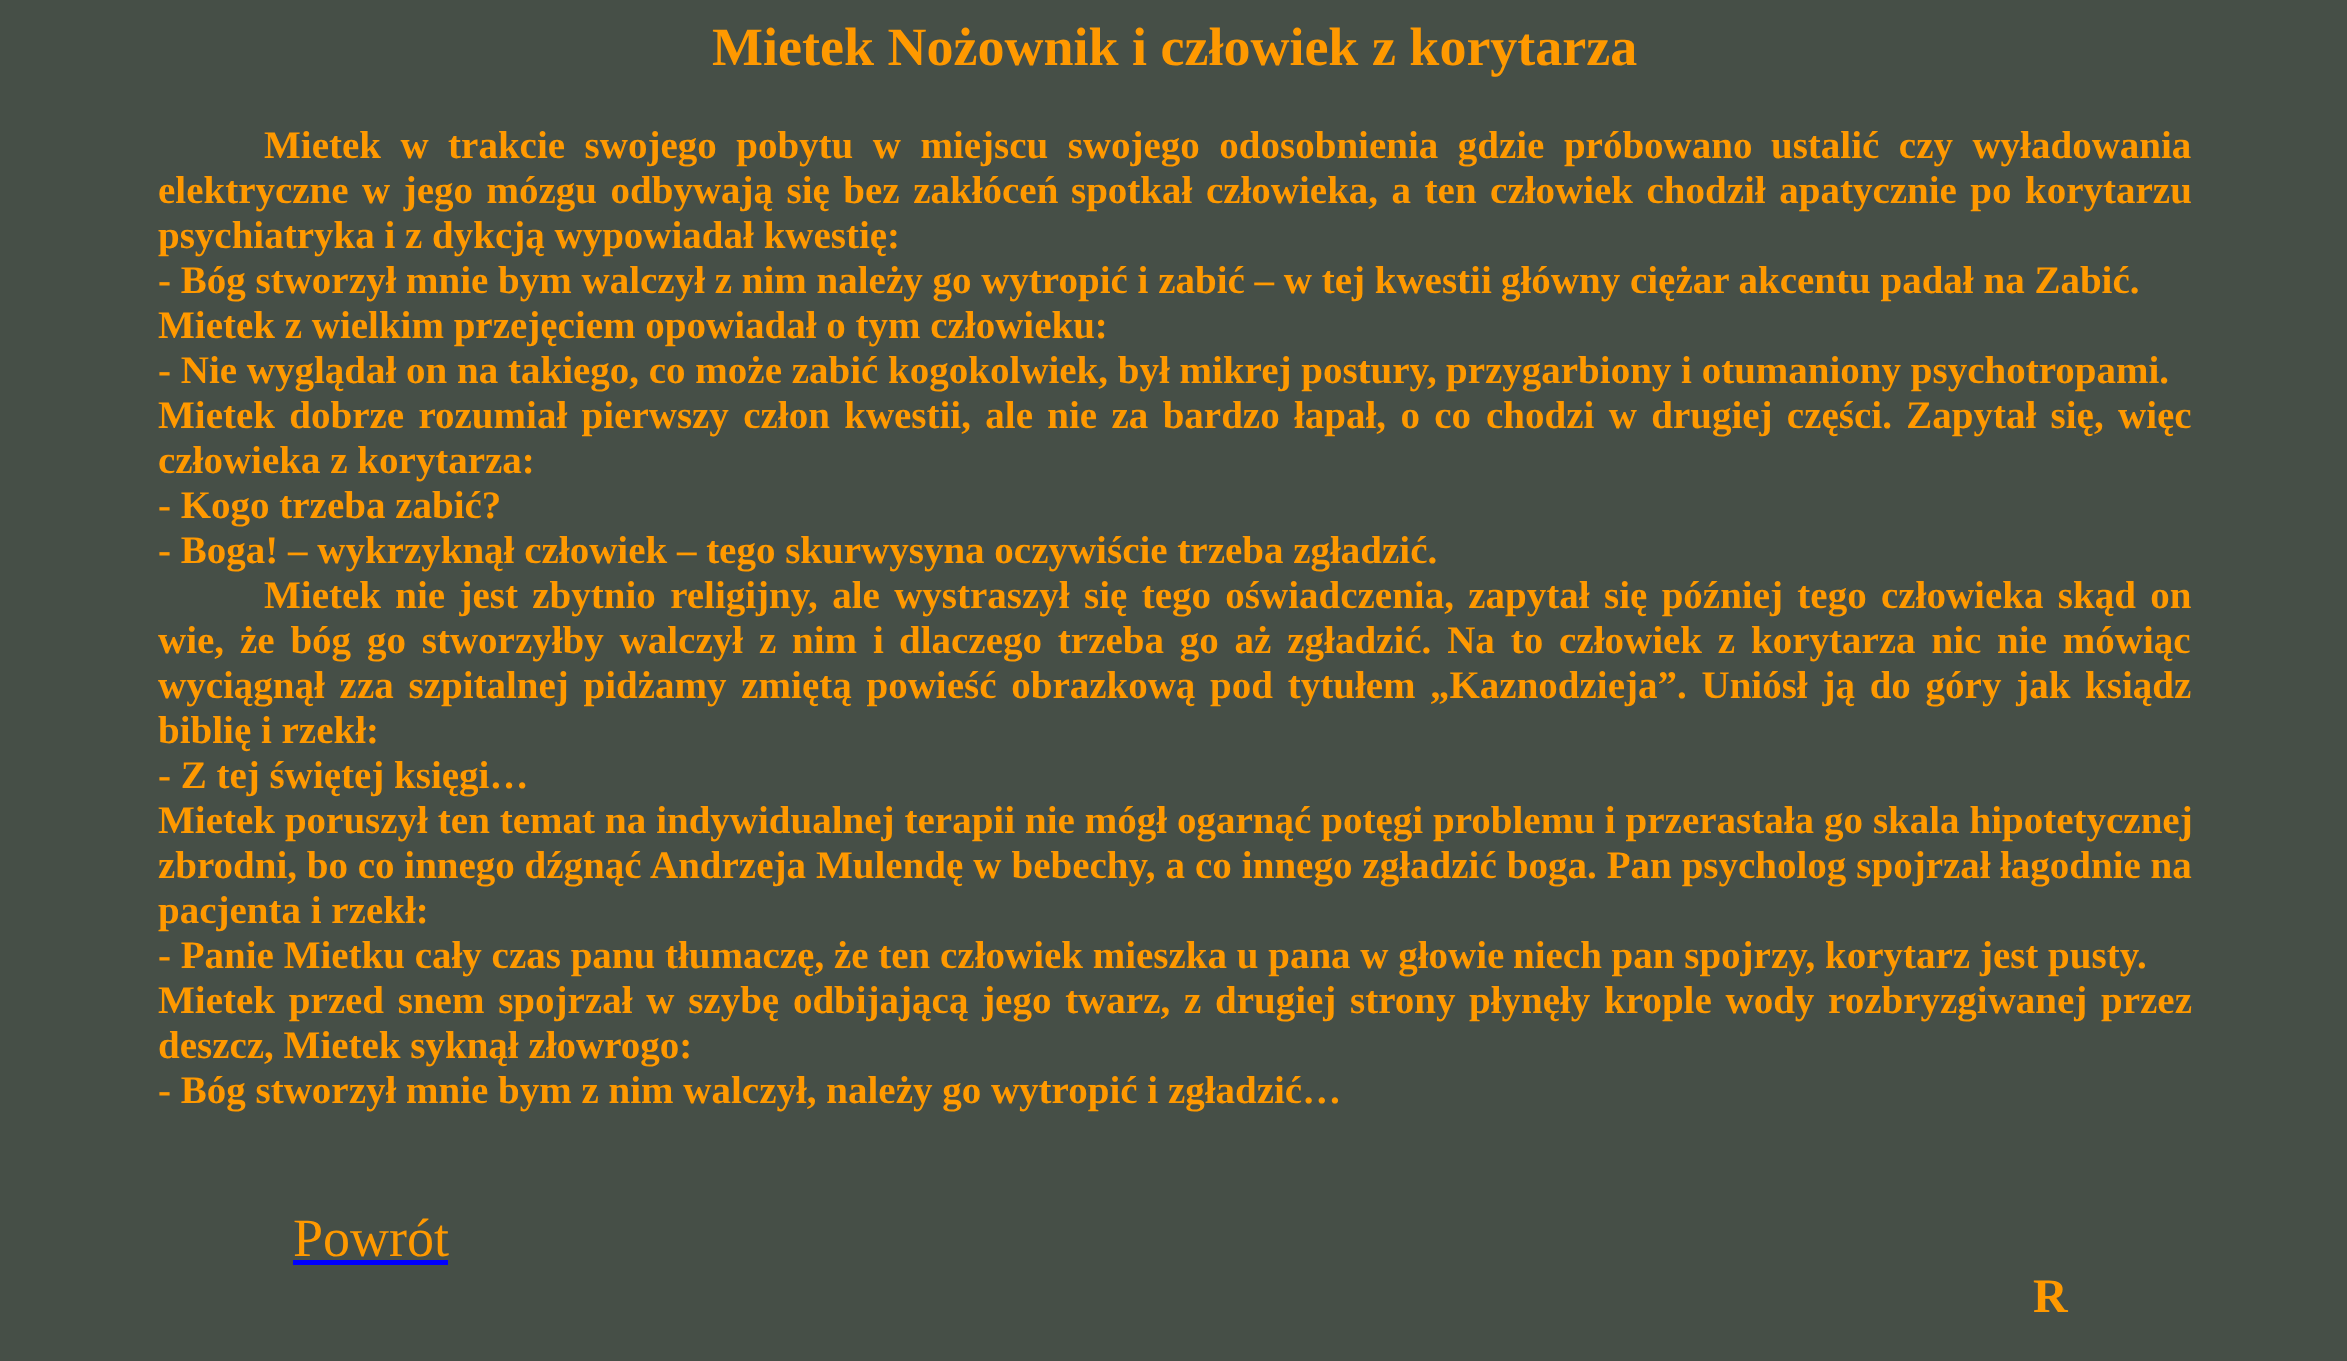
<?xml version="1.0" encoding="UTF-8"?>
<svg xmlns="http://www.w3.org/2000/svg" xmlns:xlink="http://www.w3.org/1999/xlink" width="2347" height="1361">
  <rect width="100%" height="100%" fill="#464f47" />
  <rect x="293" y="1260" width="155" height="5" fill="#0000ff" />
  <text x="712" y="65" style="font-family: Liberation Serif; font-size: 54px; font-weight: bold; fill: #ff9900">Mietek Nożownik i człowiek z korytarza</text>
  <text x="264" y="158" word-spacing="9.75" style="font-family: Liberation Serif; font-size: 39px; font-weight: bold; fill: #ff9900">Mietek w trakcie swojego pobytu w miejscu swojego odosobnienia gdzie próbowano</text>
  <text x="1771" y="158" word-spacing="9.75" style="font-family: Liberation Serif; font-size: 39px; font-weight: bold; fill: #ff9900">ustalić czy wyładowania</text>
  <text x="158" y="203" word-spacing="3.75" style="font-family: Liberation Serif; font-size: 39px; font-weight: bold; fill: #ff9900">elektryczne w jego mózgu odbywają się bez zakłóceń</text>
  <text x="1071" y="203" word-spacing="3.75" style="font-family: Liberation Serif; font-size: 39px; font-weight: bold; fill: #ff9900">spotkał człowieka, a ten człowiek chodził apatycznie po korytarzu</text>
  <text x="158" y="248" style="font-family: Liberation Serif; font-size: 39px; font-weight: bold; fill: #ff9900">psychiatryka i z dykcją wypowiadał kwestię:</text>
  <text x="158" y="293" style="font-family: Liberation Serif; font-size: 39px; font-weight: bold; fill: #ff9900">- Bóg stworzył mnie bym walczył z nim należy go wytropić i zabić – w tej kwestii</text>
  <text x="1501" y="293" style="font-family: Liberation Serif; font-size: 39px; font-weight: bold; fill: #ff9900">główny ciężar akcentu padał na Zabić.</text>
  <text x="158" y="338" style="font-family: Liberation Serif; font-size: 39px; font-weight: bold; fill: #ff9900">Mietek z wielkim przejęciem opowiadał o tym człowieku:</text>
  <text x="158" y="383" style="font-family: Liberation Serif; font-size: 39px; font-weight: bold; fill: #ff9900">- Nie wyglądał on na takiego, co może zabić kogokolwiek, był mikrej postury,</text>
  <text x="1446" y="383" style="font-family: Liberation Serif; font-size: 39px; font-weight: bold; fill: #ff9900">przygarbiony i otumaniony psychotropami.</text>
  <text x="158" y="428" word-spacing="4.6" style="font-family: Liberation Serif; font-size: 39px; font-weight: bold; fill: #ff9900">Mietek dobrze rozumiał pierwszy człon kwestii, ale nie za bardzo łapał, o co</text>
  <text x="1486" y="428" word-spacing="4.6" style="font-family: Liberation Serif; font-size: 39px; font-weight: bold; fill: #ff9900">chodzi w drugiej części. Zapytał się, więc</text>
  <text x="158" y="473" style="font-family: Liberation Serif; font-size: 39px; font-weight: bold; fill: #ff9900">człowieka z korytarza:</text>
  <text x="158" y="518" style="font-family: Liberation Serif; font-size: 39px; font-weight: bold; fill: #ff9900">- Kogo trzeba zabić?</text>
  <text x="158" y="563" style="font-family: Liberation Serif; font-size: 39px; font-weight: bold; fill: #ff9900">- Boga! – wykrzyknął człowiek – tego skurwysyna oczywiście trzeba zgładzić.</text>
  <text x="264" y="608" word-spacing="4.6" style="font-family: Liberation Serif; font-size: 39px; font-weight: bold; fill: #ff9900">Mietek nie jest zbytnio religijny, ale wystraszył się tego oświadczenia, zapytał</text>
  <text x="1604" y="608" word-spacing="4.6" style="font-family: Liberation Serif; font-size: 39px; font-weight: bold; fill: #ff9900">się później tego człowieka skąd on</text>
  <text x="158" y="653" word-spacing="6.1" style="font-family: Liberation Serif; font-size: 39px; font-weight: bold; fill: #ff9900">wie, że bóg go stworzyłby walczył z nim i</text>
  <text x="899" y="653" word-spacing="6.1" style="font-family: Liberation Serif; font-size: 39px; font-weight: bold; fill: #ff9900">dlaczego trzeba go aż zgładzić. Na to człowiek z korytarza nic nie mówiąc</text>
  <text x="158" y="698" word-spacing="5" style="font-family: Liberation Serif; font-size: 39px; font-weight: bold; fill: #ff9900">wyciągnął zza szpitalnej pidżamy zmiętą powieść obrazkową pod tytułem</text>
  <text x="1430" y="698" word-spacing="5" style="font-family: Liberation Serif; font-size: 39px; font-weight: bold; fill: #ff9900">„Kaznodzieja”. Uniósł ją do góry jak ksiądz</text>
  <text x="158" y="743" style="font-family: Liberation Serif; font-size: 39px; font-weight: bold; fill: #ff9900">biblię i rzekł:</text>
  <text x="158" y="788" style="font-family: Liberation Serif; font-size: 39px; font-weight: bold; fill: #ff9900">- Z tej świętej księgi…</text>
  <text x="158" y="833" word-spacing="0.2" style="font-family: Liberation Serif; font-size: 39px; font-weight: bold; fill: #ff9900">Mietek poruszył ten temat na indywidualnej terapii nie mógł ogarnąć potęgi problemu i przerastała go skala hipotetycznej</text>
  <text x="158" y="878" style="font-family: Liberation Serif; font-size: 39px; font-weight: bold; fill: #ff9900">zbrodni, bo co innego dźgnąć</text>
  <text x="650" y="878" word-spacing="0.25" style="font-family: Liberation Serif; font-size: 39px; font-weight: bold; fill: #ff9900">Andrzeja Mulendę w bebechy, a co innego zgładzić boga. Pan psycholog spojrzał</text>
  <text x="2000" y="878" style="font-family: Liberation Serif; font-size: 39px; font-weight: bold; fill: #ff9900">łagodnie na</text>
  <text x="158" y="923" style="font-family: Liberation Serif; font-size: 39px; font-weight: bold; fill: #ff9900">pacjenta i rzekł:</text>
  <text x="158" y="968" style="font-family: Liberation Serif; font-size: 39px; font-weight: bold; fill: #ff9900">- Panie Mietku cały czas panu tłumaczę, że ten człowiek mieszka u pana w głowie</text>
  <text x="1513" y="968" style="font-family: Liberation Serif; font-size: 39px; font-weight: bold; fill: #ff9900">niech pan spojrzy, korytarz jest pusty.</text>
  <text x="158" y="1013" word-spacing="4" style="font-family: Liberation Serif; font-size: 39px; font-weight: bold; fill: #ff9900">Mietek przed snem spojrzał w szybę odbijającą jego twarz, z drugiej strony</text>
  <text x="1469" y="1013" word-spacing="4" style="font-family: Liberation Serif; font-size: 39px; font-weight: bold; fill: #ff9900">płynęły krople wody rozbryzgiwanej przez</text>
  <text x="158" y="1058" style="font-family: Liberation Serif; font-size: 39px; font-weight: bold; fill: #ff9900">deszcz, Mietek syknął złowrogo:</text>
  <text x="158" y="1103" style="font-family: Liberation Serif; font-size: 39px; font-weight: bold; fill: #ff9900">- Bóg stworzył mnie bym z nim walczył, należy go wytropić i zgładzić…</text>
  <text x="293" y="1256" style="font-family: Liberation Serif; font-size: 54px; fill: #ff9900">Powrót</text>
  <text x="2033" y="1312" style="font-family: Liberation Serif; font-size: 48px; font-weight: bold; fill: #ff9900">R</text>
</svg>
